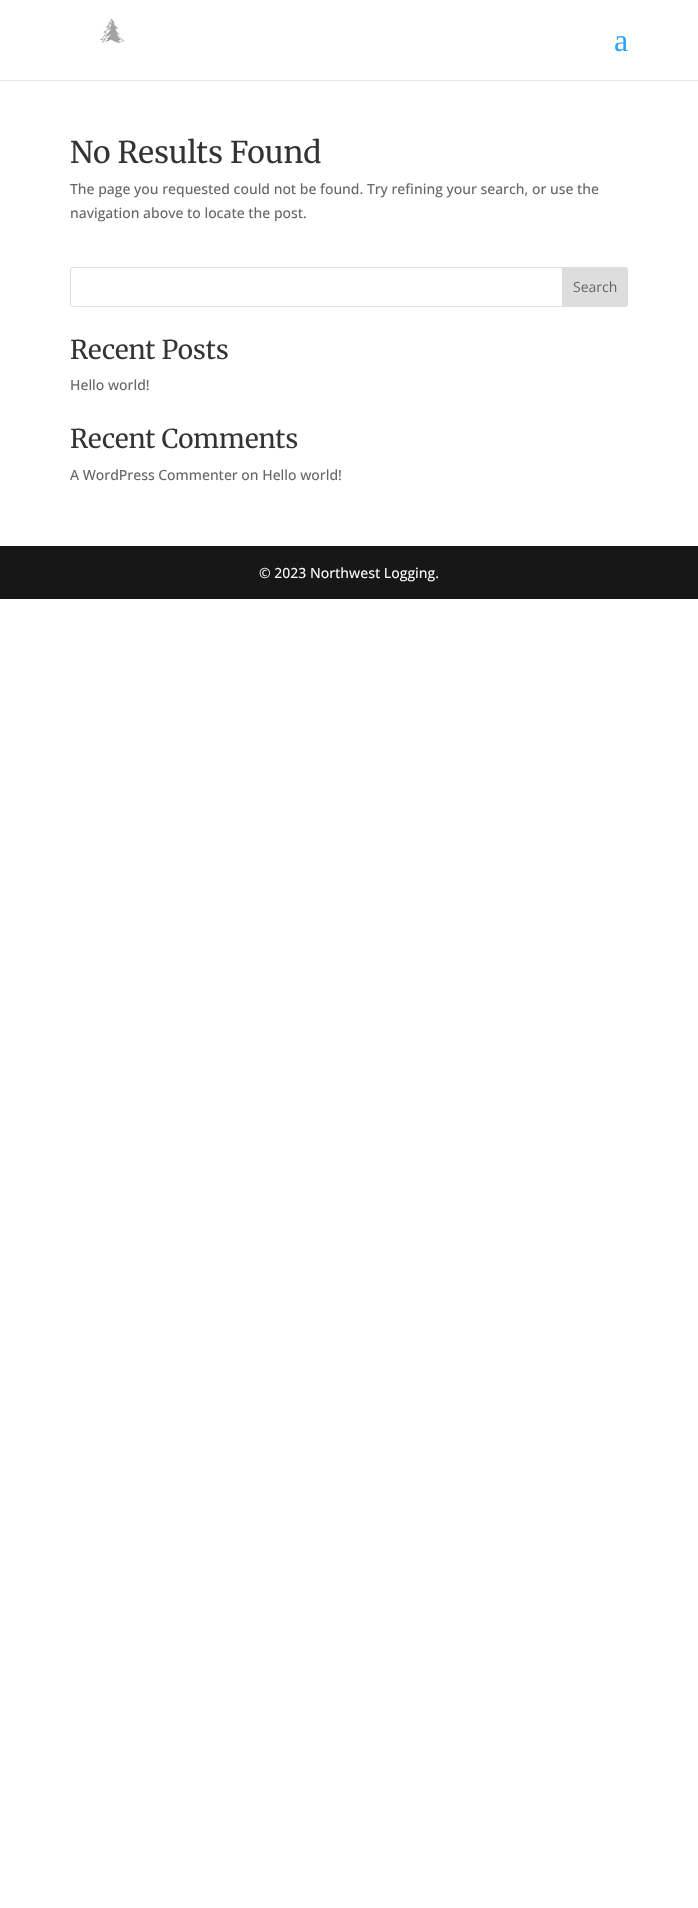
<?xml version="1.0" encoding="UTF-8"?>
<svg xmlns="http://www.w3.org/2000/svg" xmlns:xlink="http://www.w3.org/1999/xlink" width="698" height="1908">
  <rect width="100%" height="100%" fill="#ffffff" />
  <rect y="80" width="698" height="1" fill="#e6e6e6" />
  <image x="100" y="18" width="25" height="26" xlink:href="image1.png" />
  <rect x="70.5" y="267.5" width="557" height="39" rx="2.5" fill="none" stroke="#dddddd" />
  <path d="M 562.5 267.5 h 62.5 c 1.5 0 2.5 1 2.5 2.5 v 34 c 0 1.5 -1 2.5 -2.5 2.5 h -62.5 z" fill="#dddddd" stroke="#dddddd" />
  <rect y="546" width="698" height="53" fill="#171717" />
  <text x="614" y="51" style="font-family: Liberation Serif; font-size: 32px; fill: #2ea3f2">a</text>
  <text x="70" y="163" style="font-family: Merriweather; font-size: 30px; font-weight: 300; fill: #333333">No Results Found</text>
  <text x="70" y="194" style="font-family: Open Sans; font-size: 14px; font-weight: 500; fill: #666666">The page you requested could not be found. Try refining your search, or use the</text>
  <text x="70" y="218" style="font-family: Open Sans; font-size: 14px; font-weight: 500; fill: #666666">navigation above to locate the post.</text>
  <text x="573" y="292" style="font-family: Open Sans; font-size: 14px; fill: #666666">Search</text>
  <text x="70" y="359" style="font-family: Merriweather; font-size: 26px; font-weight: 300; fill: #333333">Recent Posts</text>
  <text x="70" y="390" style="font-family: Open Sans; font-size: 14px; font-weight: 500; fill: #666666">Hello world!</text>
  <text x="70" y="448" style="font-family: Merriweather; font-size: 26px; font-weight: 300; fill: #333333">Recent Comments</text>
  <text x="70" y="480" style="font-family: Open Sans; font-size: 14px; font-weight: 500; fill: #666666">A WordPress Commenter on Hello world!</text>
  <text x="259" y="578" style="font-family: Open Sans; font-size: 14px; font-weight: 500; fill: #fafafa">© 2023 Northwest Logging.</text>
</svg>
